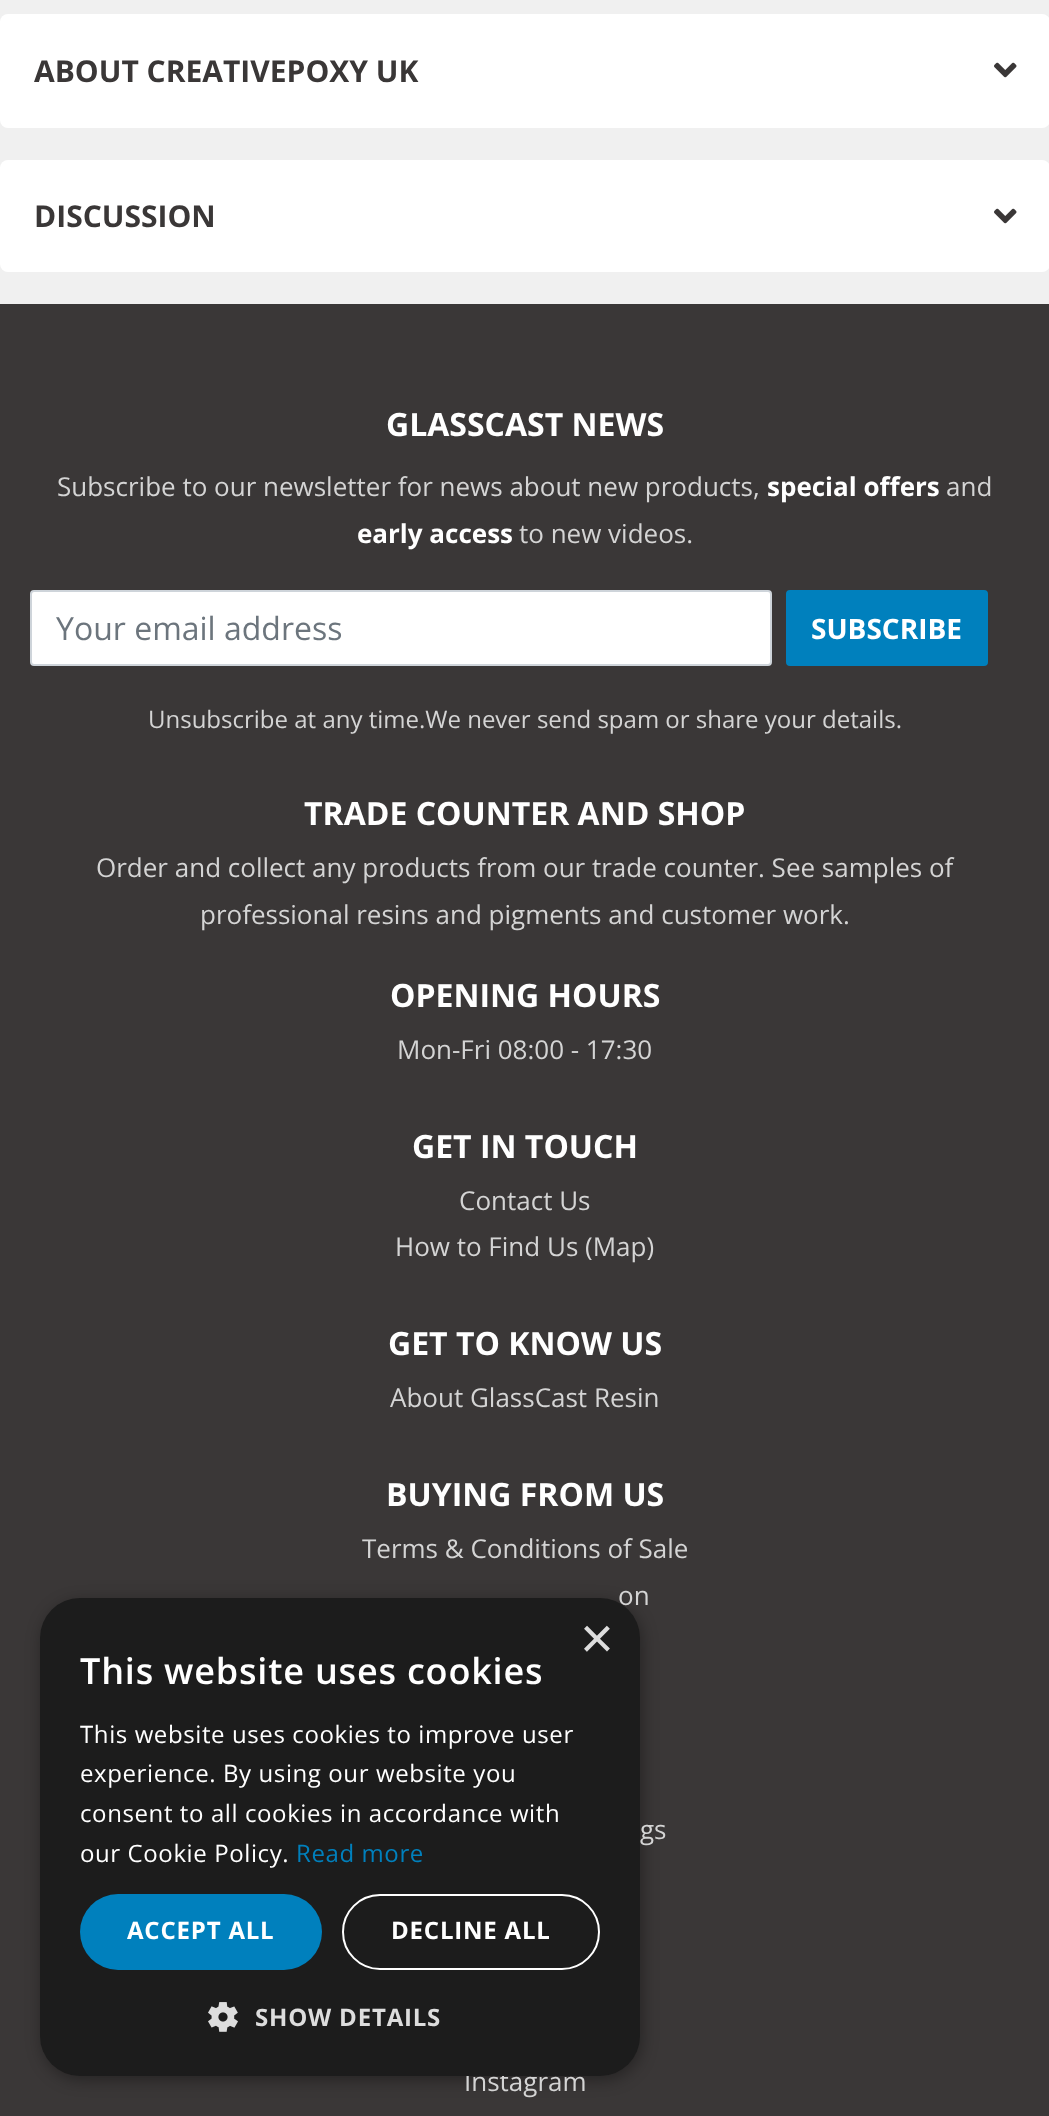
<?xml version="1.0" encoding="UTF-8"?>
<svg xmlns="http://www.w3.org/2000/svg" xmlns:xlink="http://www.w3.org/1999/xlink" width="1049" height="2116">
  <rect width="100%" height="100%" fill="#f0f0f0" />
  <rect y="14" width="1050" height="114" rx="8" fill="#ffffff" />
  <image x="994" y="62" width="23" height="16" xlink:href="image1.png" />
  <rect y="160" width="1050" height="112" rx="8" fill="#ffffff" />
  <image x="994" y="208" width="23" height="16" xlink:href="image1.png" />
  <rect y="304" width="1049" height="1812" fill="#3a3737" />
  <rect x="31" y="591" width="740" height="74" rx="3" fill="#ffffff" stroke="#ced4da" stroke-width="2" />
  <rect x="787" y="591" width="200" height="74" rx="3" fill="#0080bd" stroke="#0080bd" stroke-width="2" />
  <rect x="42" y="1602" width="600" height="478" rx="40" fill="#000000" fill-opacity="0.35" filter="blur(8px)" />
  <text x="34" y="82" style="font-family: Open Sans; font-size: 30px; font-weight: bold; fill: #3a3737">ABOUT CREATIVEPOXY UK</text>
  <text x="34" y="227" style="font-family: Open Sans; font-size: 30px; font-weight: bold; fill: #3a3737">DISCUSSION</text>
  <text x="386" y="436" style="font-family: Open Sans; font-size: 32px; font-weight: bold; fill: #ffffff">GLASSCAST NEWS</text>
  <text x="57" y="496" style="font-family: Open Sans; font-size: 26px; fill: #d4d4d4">Subscribe to our newsletter for news about new products,</text>
  <text x="767" y="496" style="font-family: Open Sans; font-size: 26px; font-weight: bold; fill: #ffffff">special offers</text>
  <text x="946" y="496" style="font-family: Open Sans; font-size: 26px; fill: #d4d4d4">and</text>
  <text x="357" y="543" style="font-family: Open Sans; font-size: 26px; font-weight: bold; fill: #ffffff">early access</text>
  <text x="519" y="543" style="font-family: Open Sans; font-size: 26px; fill: #d4d4d4">to new videos.</text>
  <text x="56" y="640" style="font-family: Open Sans; font-size: 32px; fill: #6c757d">Your email address</text>
  <text x="811" y="639" style="font-family: Open Sans; font-size: 28px; font-weight: bold; fill: #ffffff">SUBSCRIBE</text>
  <text x="148" y="728" style="font-family: Open Sans; font-size: 24px; fill: #d4d4d4">Unsubscribe at any time.We never send spam or share your details.</text>
  <text x="304" y="825" style="font-family: Open Sans; font-size: 32px; font-weight: bold; fill: #ffffff">TRADE COUNTER AND SHOP</text>
  <text x="96" y="877" style="font-family: Open Sans; font-size: 26px; fill: #d4d4d4">Order and collect any products from our trade counter. See samples of</text>
  <text x="200" y="924" style="font-family: Open Sans; font-size: 26px; fill: #d4d4d4">professional resins and pigments and customer work.</text>
  <text x="390" y="1007" style="font-family: Open Sans; font-size: 32px; font-weight: bold; fill: #ffffff">OPENING HOURS</text>
  <text x="397" y="1059" style="font-family: Open Sans; font-size: 26px; fill: #d4d4d4">Mon-Fri 08:00 - 17:30</text>
  <text x="412" y="1158" style="font-family: Open Sans; font-size: 32px; font-weight: bold; fill: #ffffff">GET IN TOUCH</text>
  <text x="459" y="1210" style="font-family: Open Sans; font-size: 26px; fill: #d4d4d4">Contact Us</text>
  <text x="395" y="1256" style="font-family: Open Sans; font-size: 26px; fill: #d4d4d4">How to Find Us (Map)</text>
  <text x="388" y="1355" style="font-family: Open Sans; font-size: 32px; font-weight: bold; fill: #ffffff">GET TO KNOW US</text>
  <text x="390" y="1407" style="font-family: Open Sans; font-size: 26px; fill: #d4d4d4">About GlassCast Resin</text>
  <text x="386" y="1506" style="font-family: Open Sans; font-size: 32px; font-weight: bold; fill: #ffffff">BUYING FROM US</text>
  <text x="362" y="1558" style="font-family: Open Sans; font-size: 26px; fill: #d4d4d4">Terms &amp; Conditions of Sale</text>
  <text x="618" y="1605" style="font-family: Open Sans; font-size: 26px; fill: #d4d4d4">on</text>
  <text x="640" y="1839" style="font-family: Open Sans; font-size: 26px; fill: #d4d4d4">gs</text>
  <text x="464" y="2091" style="font-family: Open Sans; font-size: 26px; fill: #d4d4d4">Instagram</text>
  <rect x="40" y="1598" width="600" height="478" rx="40" fill="#1c1c1c" />
  <text x="580" y="1658" style="font-family: Liberation Sans; font-size: 58px; fill: #dddddd">×</text>
  <text x="80" y="1684" style="font-family: Open Sans; font-size: 36px; font-weight: 600; letter-spacing: 0.8px; fill: #ffffff">This website uses cookies</text>
  <text x="80" y="1743" style="font-family: Open Sans; font-size: 24px; letter-spacing: 0.6px; fill: #ffffff">This website uses cookies to improve user</text>
  <text x="80" y="1782" style="font-family: Open Sans; font-size: 24px; letter-spacing: 0.6px; fill: #ffffff">experience. By using our website you</text>
  <text x="80" y="1822" style="font-family: Open Sans; font-size: 24px; letter-spacing: 0.6px; fill: #ffffff">consent to all cookies in accordance with</text>
  <text x="80" y="1862" style="font-family: Open Sans; font-size: 24px; letter-spacing: 0.6px; fill: #ffffff">our Cookie Policy.</text>
  <text x="296" y="1862" style="font-family: Open Sans; font-size: 24px; letter-spacing: 0.6px; fill: #0080bd">Read more</text>
  <rect x="80" y="1894" width="242" height="76" rx="38" fill="#0080bd" />
  <text x="127" y="1939" style="font-family: Open Sans; font-size: 24px; font-weight: bold; letter-spacing: 0.8px; fill: #ffffff">ACCEPT ALL</text>
  <rect x="343" y="1895" width="256" height="74" rx="37" fill="none" stroke="#ffffff" stroke-width="2" />
  <text x="391" y="1939" style="font-family: Open Sans; font-size: 24px; font-weight: bold; letter-spacing: 0.8px; fill: #ffffff">DECLINE ALL</text>
  <image x="208" y="2002" width="30" height="30" xlink:href="image2.png" />
  <text x="255" y="2026" style="font-family: Open Sans; font-size: 24px; font-weight: bold; letter-spacing: 0.8px; fill: #dddddd">SHOW DETAILS</text>
</svg>
